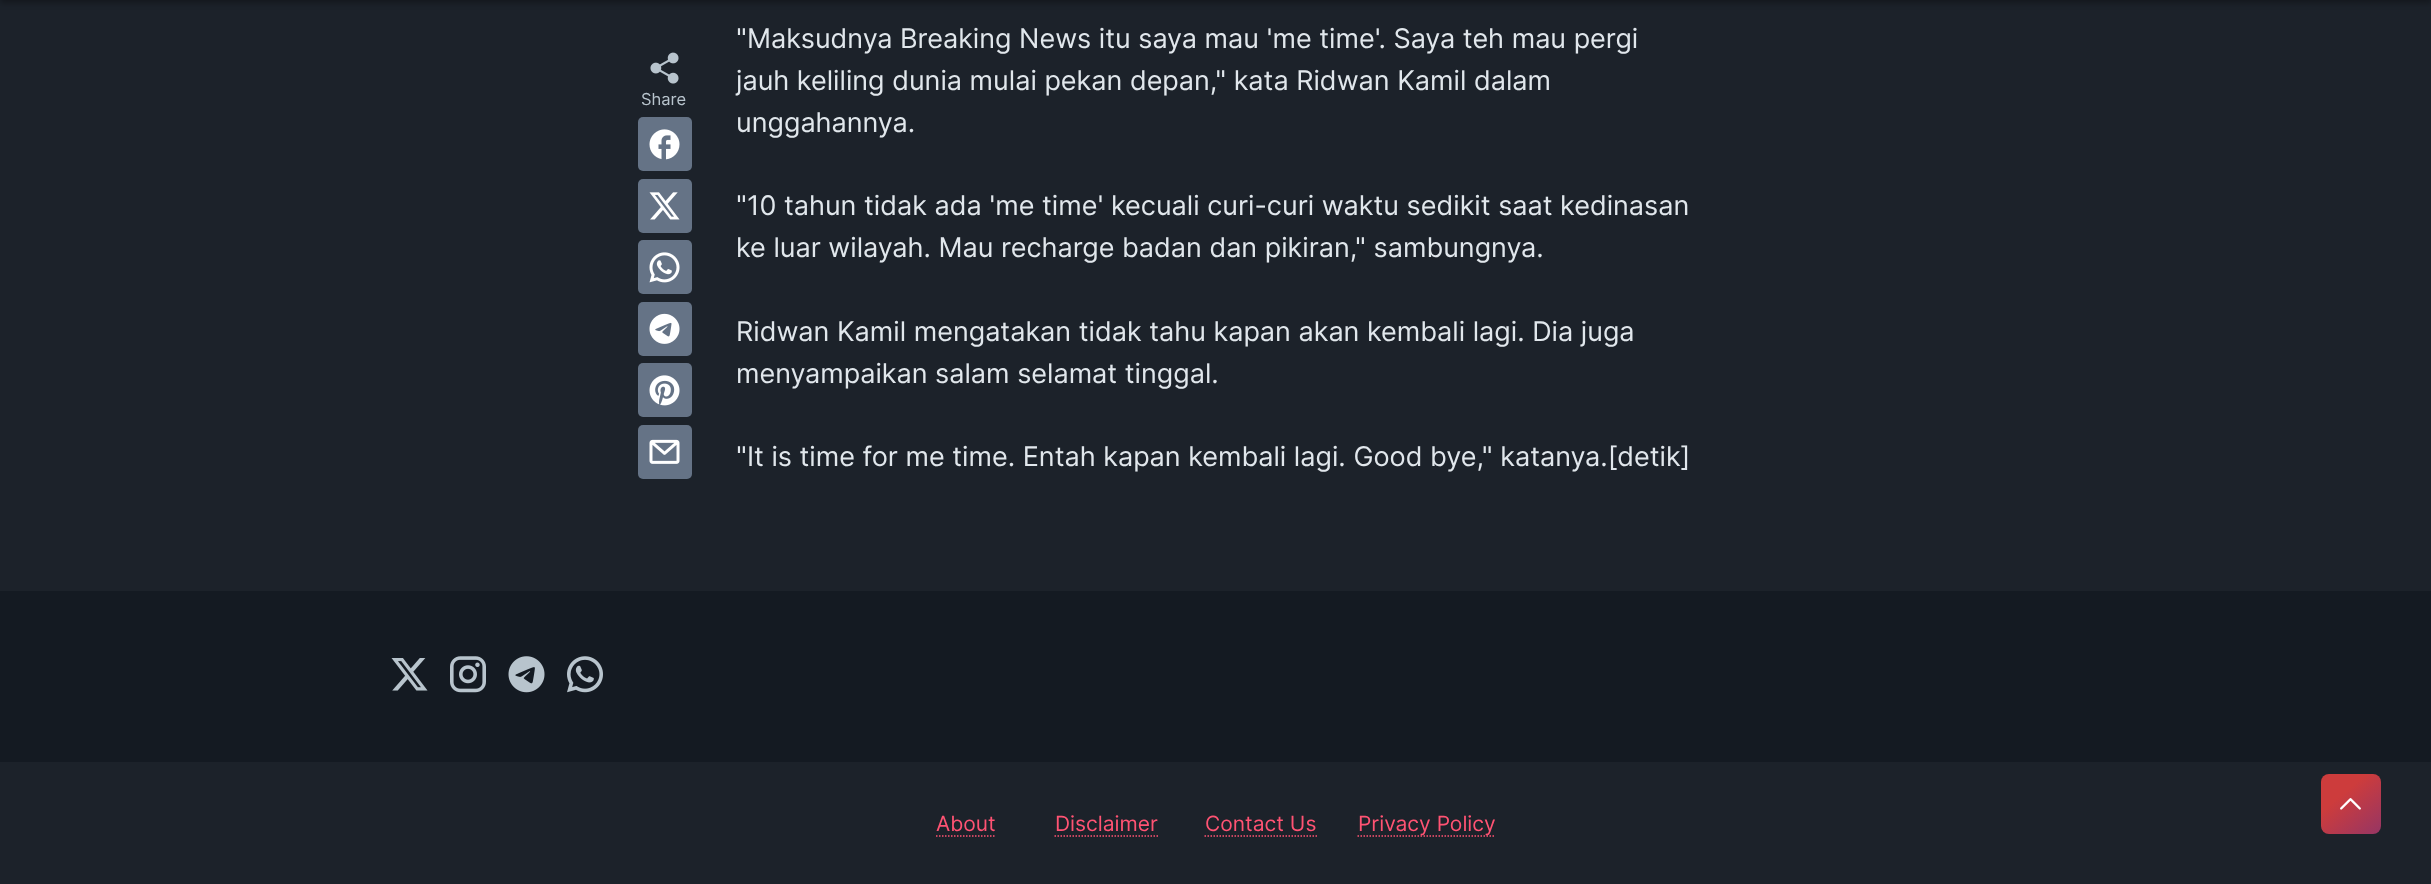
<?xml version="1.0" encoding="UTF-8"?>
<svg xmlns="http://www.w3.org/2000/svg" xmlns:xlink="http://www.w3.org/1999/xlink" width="2431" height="884">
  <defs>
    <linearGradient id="g1" gradientUnits="userSpaceOnUse" x1="2323" y1="772" x2="2391" y2="853"><stop offset="0.28" stop-color="#cd3c3c" /><stop offset="1" stop-color="#813373" /></linearGradient>
  </defs>
  <rect width="100%" height="100%" fill="#1c222a" />
  <rect y="-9" width="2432" height="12" fill="#000000" fill-opacity="0.31" filter="blur(3px)" />
  <image x="650" y="52" width="29" height="32" xlink:href="image1.png" />
  <rect x="638" y="117" width="54" height="54" rx="5" fill="#657386" />
  <image x="649" y="129" width="31" height="31" xlink:href="image2.png" />
  <rect x="638" y="179" width="54" height="54" rx="5" fill="#657386" />
  <image x="649" y="192" width="31" height="28" xlink:href="image3.png" />
  <rect x="638" y="240" width="54" height="54" rx="5" fill="#657386" />
  <image x="649" y="252" width="31" height="31" xlink:href="image4.png" />
  <rect x="638" y="302" width="54" height="54" rx="5" fill="#657386" />
  <image x="649" y="313" width="31" height="31" xlink:href="image5.png" />
  <rect x="638" y="363" width="54" height="54" rx="5" fill="#657386" />
  <image x="649" y="375" width="31" height="31" xlink:href="image6.png" />
  <rect x="638" y="425" width="54" height="54" rx="5" fill="#657386" />
  <image x="649" y="439" width="31" height="25" xlink:href="image7.png" />
  <rect y="591" width="2431" height="171" fill="#141a22" />
  <image x="391" y="658" width="37" height="33" xlink:href="image8.png" />
  <image x="450" y="656" width="36" height="37" xlink:href="image9.png" />
  <image x="508" y="656" width="37" height="37" xlink:href="image10.png" />
  <image x="567" y="656" width="36" height="37" xlink:href="image11.png" />
  <path d="M 936 836 h 60" fill="none" stroke="#ff5373" stroke-width="1.5" stroke-dasharray="1.5 1.5" />
  <path d="M 1054.5 836 h 103.5" fill="none" stroke="#ff5373" stroke-width="1.5" stroke-dasharray="1.5 1.5" />
  <path d="M 1204.5 836 h 112.5" fill="none" stroke="#ff5373" stroke-width="1.5" stroke-dasharray="1.5 1.5" />
  <path d="M 1357.5 836 h 138" fill="none" stroke="#ff5373" stroke-width="1.5" stroke-dasharray="1.5 1.5" />
  <rect x="2321" y="774" width="60" height="60" rx="8" fill="url(#g1)" />
  <image x="2340" y="798" width="21" height="12" xlink:href="image12.png" />
  <text x="641" y="105" style="font-family: Inter; font-size: 16.5px; fill: #b8c4cd">Share</text>
  <text x="736" y="48" style="font-family: Inter; font-size: 27px; fill: #e1e7ec">"Maksudnya Breaking News itu saya mau 'me time'. Saya teh mau pergi</text>
  <text x="736" y="90" style="font-family: Inter; font-size: 27px; fill: #e1e7ec">jauh keliling dunia mulai pekan depan," kata Ridwan Kamil dalam</text>
  <text x="736" y="132" style="font-family: Inter; font-size: 27px; fill: #e1e7ec">unggahannya.</text>
  <text x="736" y="215" style="font-family: Inter; font-size: 27px; fill: #e1e7ec">"10 tahun tidak ada 'me time' kecuali curi-curi waktu sedikit saat kedinasan</text>
  <text x="736" y="257" style="font-family: Inter; font-size: 27px; fill: #e1e7ec">ke luar wilayah. Mau recharge badan dan pikiran," sambungnya.</text>
  <text x="736" y="341" style="font-family: Inter; font-size: 27px; fill: #e1e7ec">Ridwan Kamil mengatakan tidak tahu kapan akan kembali lagi. Dia juga</text>
  <text x="736" y="383" style="font-family: Inter; font-size: 27px; fill: #e1e7ec">menyampaikan salam selamat tinggal.</text>
  <text x="736" y="466" style="font-family: Inter; font-size: 27px; fill: #e1e7ec">"It is time for me time. Entah kapan kembali lagi. Good bye," katanya.[detik]</text>
  <text x="936" y="831" style="font-family: Inter; font-size: 21px; fill: #ff5373">About</text>
  <text x="1055" y="831" style="font-family: Inter; font-size: 21px; fill: #ff5373">Disclaimer</text>
  <text x="1205" y="831" style="font-family: Inter; font-size: 21px; fill: #ff5373">Contact Us</text>
  <text x="1358" y="831" style="font-family: Inter; font-size: 21px; fill: #ff5373">Privacy Policy</text>
</svg>
